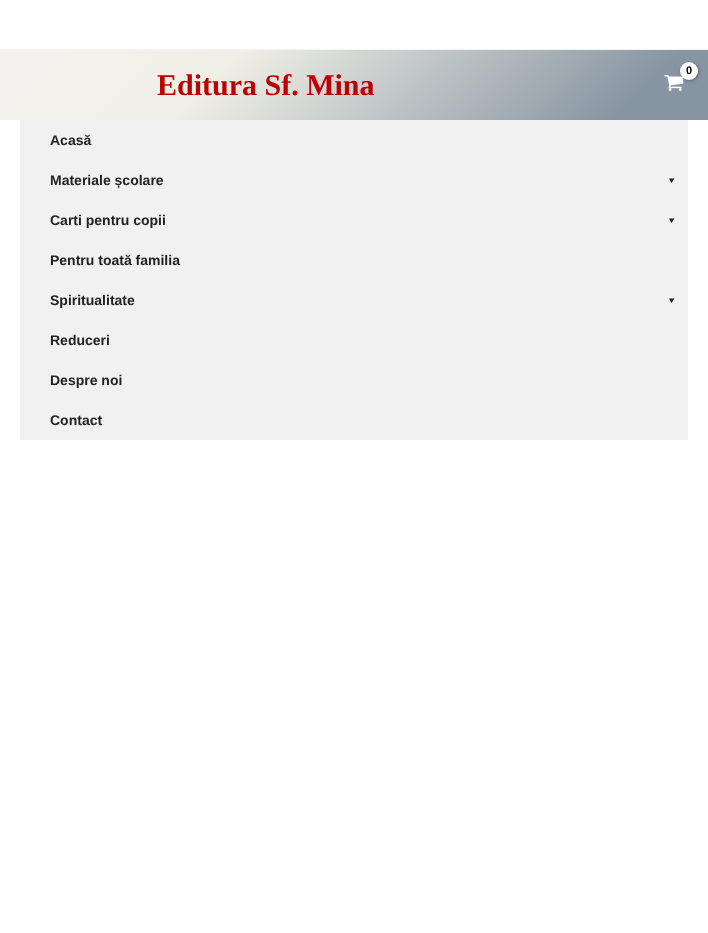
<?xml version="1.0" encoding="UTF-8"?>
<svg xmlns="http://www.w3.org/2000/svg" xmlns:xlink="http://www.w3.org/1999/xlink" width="708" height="933">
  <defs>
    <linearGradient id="g1" gradientUnits="userSpaceOnUse" x1="159" y1="-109" x2="549" y2="280"><stop offset="0" stop-color="#f2f1ee" /><stop offset="0.31" stop-color="#f0efe6" /><stop offset="0.88" stop-color="#8795a2" /></linearGradient>
  </defs>
  <rect width="100%" height="100%" fill="#ffffff" />
  <rect y="49" width="708" height="1" fill="#f2f5f7" />
  <rect y="50" width="708" height="70" fill="url(#g1)" />
  <image x="664" y="75" width="20" height="16" xlink:href="image1.png" />
  <rect x="681" y="63" width="18" height="18" rx="9" fill="#000000" fill-opacity="0.3" filter="blur(1.5px)" />
  <circle cx="689" cy="71" r="9" fill="#ffffff" />
  <rect x="20" y="120" width="668" height="320" fill="#f1f1f1" />
  <path d="M 674.5 178.5 l -3 4.5 l -2.5 -4.5 z" fill="#222222" />
  <path d="M 674.5 218.5 l -3 4.5 l -2.5 -4.5 z" fill="#222222" />
  <path d="M 674.5 298.5 l -3 4.5 l -2.5 -4.5 z" fill="#222222" />
  <text x="686" y="74" style="font-family: Liberation Sans; font-size: 11px; font-weight: bold; fill: #000000">0</text>
  <text x="157" y="95" style="font-family: Liberation Serif; font-size: 30px; font-weight: bold; fill: #ba0202">Editura Sf. Mina</text>
  <text x="50" y="145" style="font-family: Liberation Sans; font-size: 14px; font-weight: bold; fill: #222222">Acasă</text>
  <text x="50" y="185" style="font-family: Liberation Sans; font-size: 14px; font-weight: bold; fill: #222222">Materiale școlare</text>
  <text x="50" y="225" style="font-family: Liberation Sans; font-size: 14px; font-weight: bold; fill: #222222">Carti pentru copii</text>
  <text x="50" y="265" style="font-family: Liberation Sans; font-size: 14px; font-weight: bold; fill: #222222">Pentru toată familia</text>
  <text x="50" y="305" style="font-family: Liberation Sans; font-size: 14px; font-weight: bold; fill: #222222">Spiritualitate</text>
  <text x="50" y="345" style="font-family: Liberation Sans; font-size: 14px; font-weight: bold; fill: #222222">Reduceri</text>
  <text x="50" y="385" style="font-family: Liberation Sans; font-size: 14px; font-weight: bold; fill: #222222">Despre noi</text>
  <text x="50" y="425" style="font-family: Liberation Sans; font-size: 14px; font-weight: bold; fill: #222222">Contact</text>
</svg>
